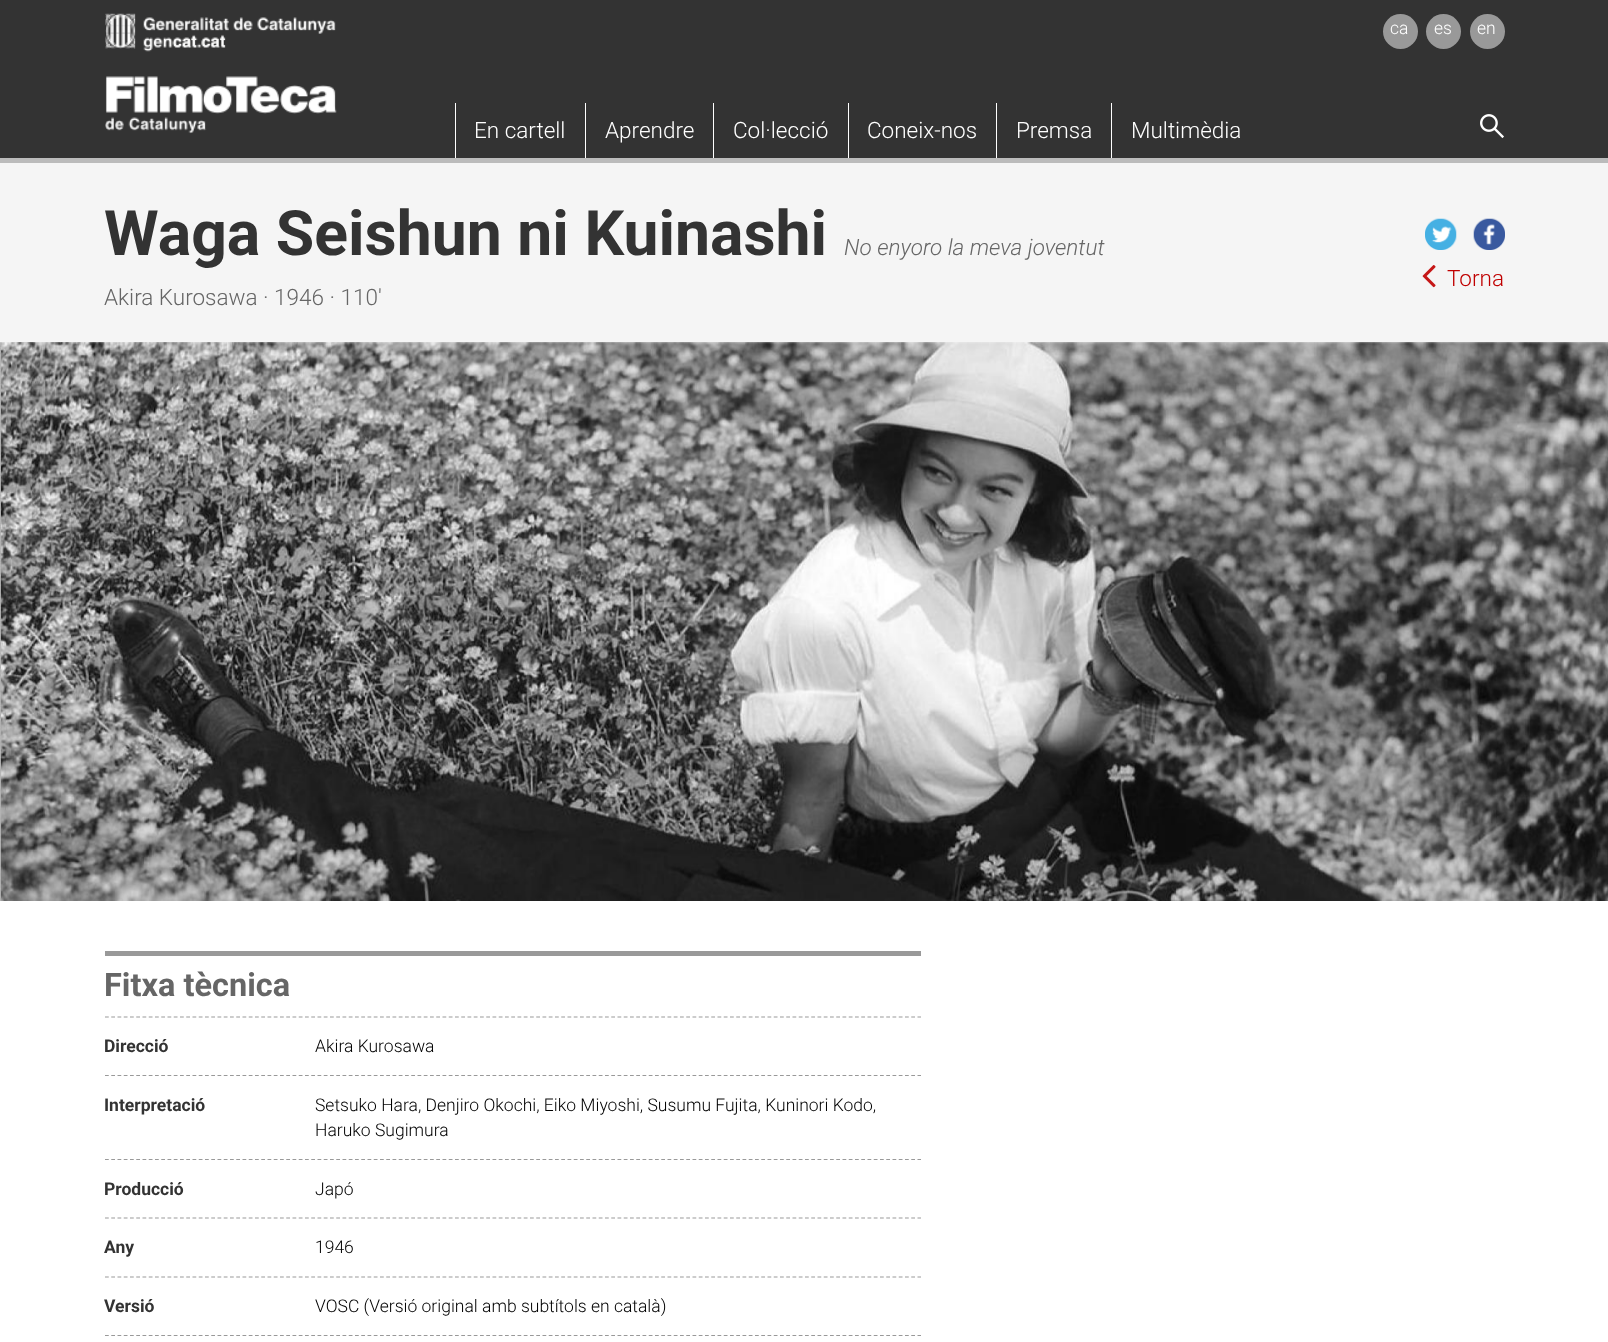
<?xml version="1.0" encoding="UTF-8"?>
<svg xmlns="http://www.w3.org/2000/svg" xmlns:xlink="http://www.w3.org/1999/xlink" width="1608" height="1342">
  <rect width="100%" height="100%" fill="#ffffff" />
  <rect width="1608" height="158" fill="#333333" />
  <rect y="158" width="1608" height="5" fill="#bbbbbb" />
  <image x="105" y="13" width="231" height="39" xlink:href="image1.png" />
  <circle cx="1400.5" cy="31.5" r="17.5" fill="#999999" />
  <circle cx="1443.5" cy="31.5" r="17.5" fill="#999999" />
  <circle cx="1487.5" cy="31.5" r="17.5" fill="#999999" />
  <image x="105" y="76" width="232" height="58" xlink:href="image2.png" />
  <rect x="455" y="103" width="1" height="55" fill="#ffffff" />
  <rect x="585" y="103" width="1" height="55" fill="#ffffff" />
  <rect x="713" y="103" width="1" height="55" fill="#ffffff" />
  <rect x="848" y="103" width="1" height="55" fill="#ffffff" />
  <rect x="996" y="103" width="1" height="55" fill="#ffffff" />
  <rect x="1111" y="103" width="1" height="55" fill="#ffffff" />
  <image x="1480" y="114" width="24" height="25" xlink:href="image3.png" />
  <rect y="163" width="1608" height="180" fill="#f5f5f5" />
  <image x="1425" y="218" width="32" height="32" xlink:href="image4.png" />
  <image x="1473" y="218" width="32" height="32" xlink:href="image5.png" />
  <image x="1422" y="265" width="14" height="23" xlink:href="image6.png" />
  <image x="0" y="342" width="1608" height="559" xlink:href="image7.png" />
  <rect x="105" y="951" width="816" height="5" fill="#999999" />
  <path d="M 105 1017 h 816" fill="none" stroke="#999999" stroke-width="1.2" stroke-dasharray="3.75 2.5" />
  <path d="M 105 1075.5 h 816" fill="none" stroke="#999999" stroke-width="1.2" stroke-dasharray="3.75 2.5" />
  <path d="M 105 1159.5 h 816" fill="none" stroke="#999999" stroke-width="1.2" stroke-dasharray="3.75 2.5" />
  <path d="M 105 1218 h 816" fill="none" stroke="#999999" stroke-width="1.2" stroke-dasharray="3.75 2.5" />
  <path d="M 105 1277 h 816" fill="none" stroke="#999999" stroke-width="1.2" stroke-dasharray="3.75 2.5" />
  <path d="M 105 1335.5 h 816" fill="none" stroke="#999999" stroke-width="1.2" stroke-dasharray="3.75 2.5" />
  <text x="1390" y="34" style="font-family: Roboto; font-size: 17.5px; font-weight: 300; fill: #ffffff">ca</text>
  <text x="1434" y="34" style="font-family: Roboto; font-size: 17.5px; font-weight: 300; fill: #ffffff">es</text>
  <text x="1477" y="34" style="font-family: Roboto; font-size: 17.5px; font-weight: 300; fill: #ffffff">en</text>
  <text x="474" y="138" style="font-family: Roboto; font-size: 22.5px; font-weight: 300; fill: #ffffff">En cartell</text>
  <text x="605" y="138" style="font-family: Roboto; font-size: 22.5px; font-weight: 300; fill: #ffffff">Aprendre</text>
  <text x="733" y="138" style="font-family: Roboto; font-size: 22.5px; font-weight: 300; fill: #ffffff">Col·lecció</text>
  <text x="867" y="138" style="font-family: Roboto; font-size: 22.5px; font-weight: 300; fill: #ffffff">Coneix-nos</text>
  <text x="1016" y="138" style="font-family: Roboto; font-size: 22.5px; font-weight: 300; fill: #ffffff">Premsa</text>
  <text x="1131" y="138" style="font-family: Roboto; font-size: 22.5px; font-weight: 300; fill: #ffffff">Multimèdia</text>
  <text x="104" y="255" style="font-family: Roboto; font-size: 62.5px; font-weight: bold; fill: #333333">Waga Seishun ni Kuinashi</text>
  <text x="844" y="255" style="font-family: Roboto; font-size: 22.5px; font-weight: 300; font-style: italic; fill: #666666">No enyoro la meva joventut</text>
  <text x="104" y="305" style="font-family: Roboto; font-size: 22.5px; font-weight: 300; fill: #666666">Akira Kurosawa · 1946 · 110'</text>
  <text x="1447" y="286" style="font-family: Roboto; font-size: 22.5px; font-weight: 300; fill: #c00000">Torna</text>
  <text x="104" y="996" style="font-family: Roboto; font-size: 32.5px; font-weight: bold; fill: #666666">Fitxa tècnica</text>
  <text x="104" y="1052" style="font-family: Roboto; font-size: 17.5px; font-weight: bold; fill: #333333">Direcció</text>
  <text x="315" y="1052" style="font-family: Roboto; font-size: 17.5px; font-weight: 300; fill: #000000">Akira Kurosawa</text>
  <text x="104" y="1111" style="font-family: Roboto; font-size: 17.5px; font-weight: bold; fill: #333333">Interpretació</text>
  <text x="315" y="1111" style="font-family: Roboto; font-size: 17.5px; font-weight: 300; fill: #000000">Setsuko Hara, Denjiro Okochi, Eiko Miyoshi, Susumu Fujita, Kuninori Kodo,</text>
  <text x="315" y="1136" style="font-family: Roboto; font-size: 17.5px; font-weight: 300; fill: #000000">Haruko Sugimura</text>
  <text x="104" y="1195" style="font-family: Roboto; font-size: 17.5px; font-weight: bold; fill: #333333">Producció</text>
  <text x="315" y="1195" style="font-family: Roboto; font-size: 17.5px; font-weight: 300; fill: #000000">Japó</text>
  <text x="104" y="1253" style="font-family: Roboto; font-size: 17.5px; font-weight: bold; fill: #333333">Any</text>
  <text x="315" y="1253" style="font-family: Roboto; font-size: 17.5px; font-weight: 300; fill: #000000">1946</text>
  <text x="104" y="1312" style="font-family: Roboto; font-size: 17.5px; font-weight: bold; fill: #333333">Versió</text>
  <text x="315" y="1312" style="font-family: Roboto; font-size: 17.5px; font-weight: 300; fill: #000000">VOSC (Versió original amb subtítols en català)</text>
</svg>
